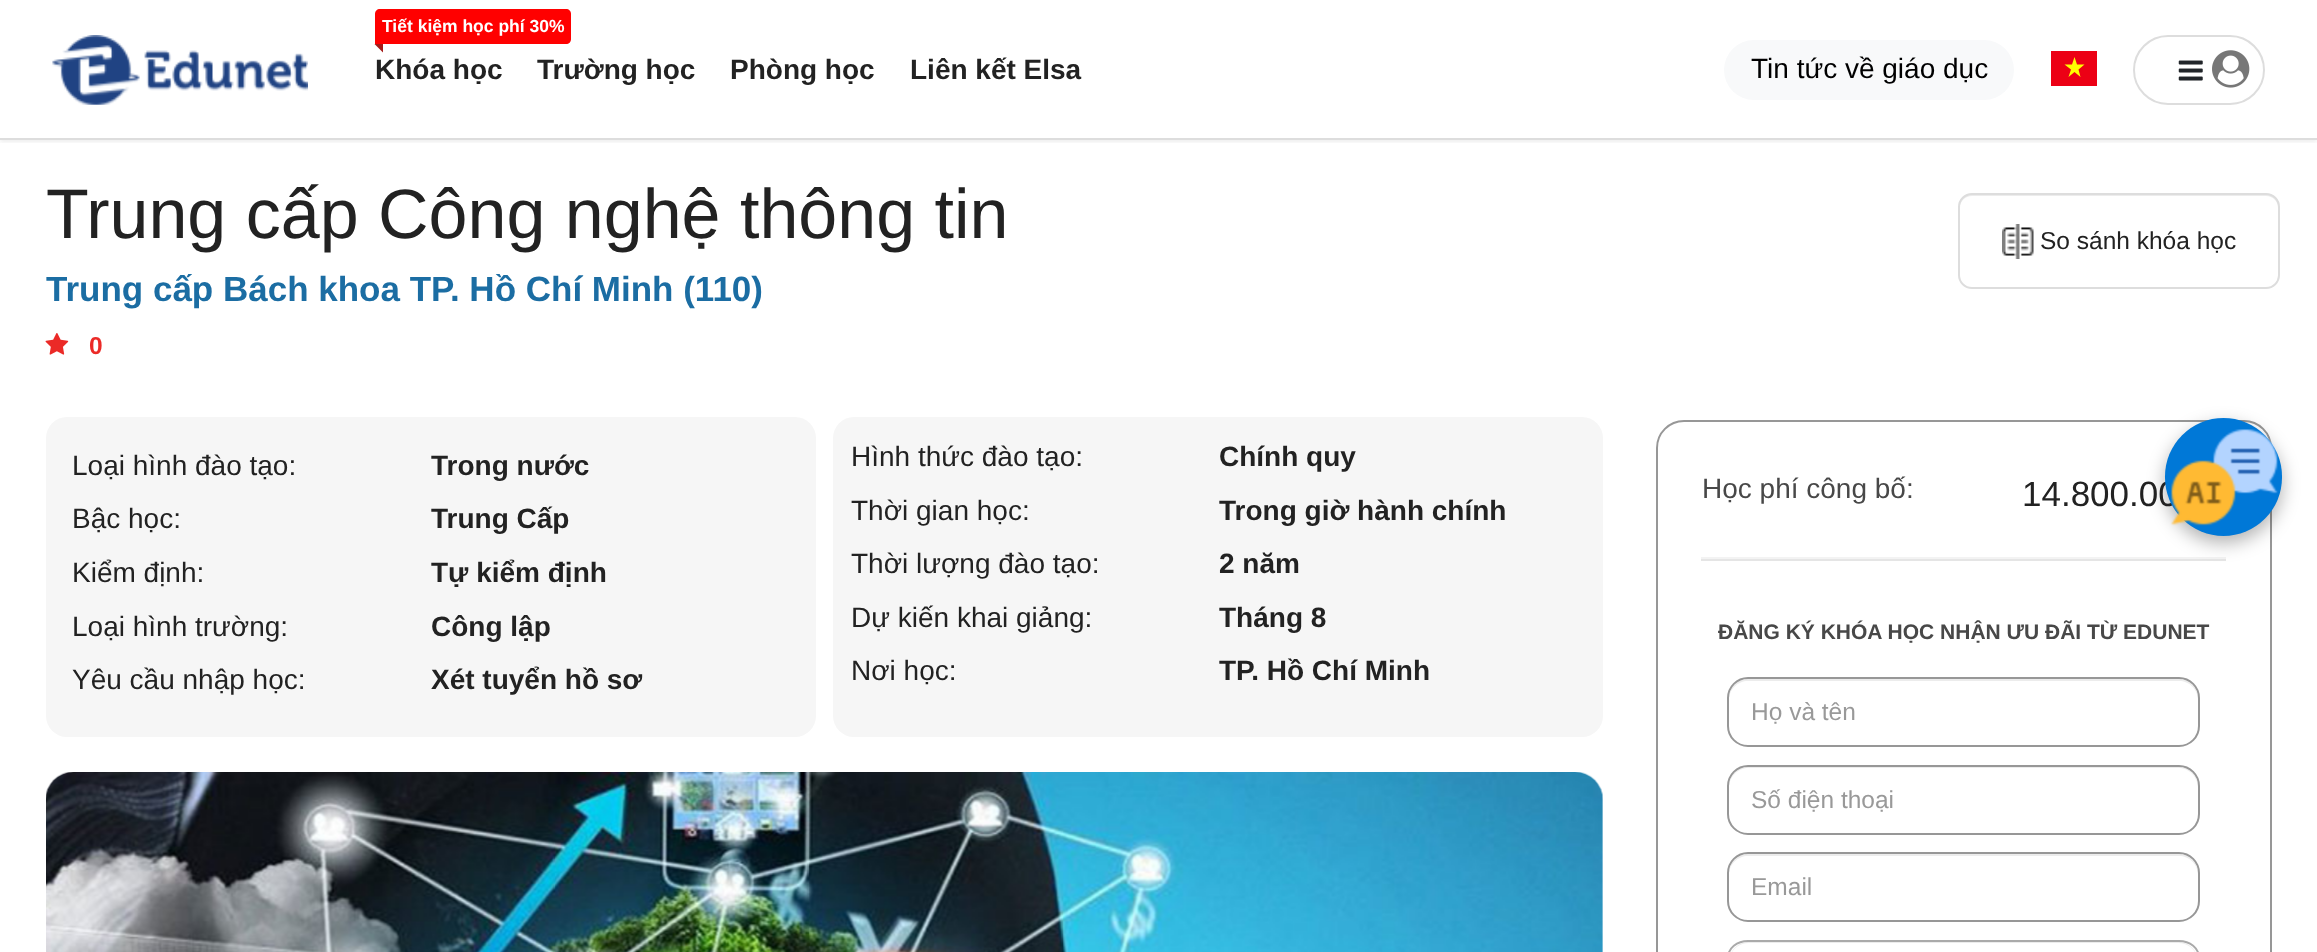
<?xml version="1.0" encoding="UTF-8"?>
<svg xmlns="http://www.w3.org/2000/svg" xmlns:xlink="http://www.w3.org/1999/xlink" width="2317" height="952">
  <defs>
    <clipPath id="clip1"><rect x="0" y="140" width="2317" height="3" /></clipPath>
  </defs>
  <rect width="100%" height="100%" fill="#ffffff" />
  <g clip-path="url(#clip1)">
    <rect y="2" width="2317" height="140" fill="#000000" fill-opacity="0.07" filter="blur(2px)" />
  </g>
  <rect y="138" width="2317" height="2" fill="#dddddd" />
  <image x="52" y="35" width="256" height="70" xlink:href="image1.png" />
  <path d="M 380 9 h 186 c 3 0 5 2 5 5 v 25 c 0 3 -2 5 -5 5 h -191 v -30 c 0 -3 2 -5 5 -5 z" fill="#ff0000" />
  <path d="M 374.5 44 h 8.5 v 8.5 z" fill="#a51b19" />
  <rect x="1724" y="40" width="290" height="60" rx="30" fill="#f8f9fa" />
  <rect x="2051" y="51" width="46" height="35" fill="#ec0015" />
  <path d="M 2080.5 77 l -6 -5 l -6 5 l 2.5 -7.5 l -6.5 -5 h 7.5 l 2.5 -7.5 l 2.5 7.5 h 7.5 l -6 5 z" fill="#ffff00" fill-rule="evenodd" />
  <rect x="2134" y="36" width="130" height="68" rx="34" fill="none" stroke="#dddddd" stroke-width="2" />
  <image x="2178" y="60" width="25" height="21" xlink:href="image2.png" />
  <image x="2212" y="50" width="38" height="38" xlink:href="image3.png" />
  <image x="45" y="333" width="24" height="22" xlink:href="image4.png" />
  <path d="M 1972 196 h 294 c 7 0 12 5 12 12 v 68 c 0 2 -1 4 -1 6 c 1 -2 2 -4 2 -7 v -69 c 0 -7 -5 -12 -12 -12 h -295 c -7 0 -12 5 -12 12 v 2 c 0 -7 5 -12 12 -12 z" fill="#ececec" />
  <rect x="1959" y="194" width="320" height="94" rx="13" fill="none" stroke="#dddddd" stroke-width="2" />
  <image x="2002" y="224" width="32" height="35" xlink:href="image5.png" />
  <rect x="46" y="417" width="770" height="320" rx="21" fill="#f6f6f6" />
  <rect x="833" y="417" width="770" height="320" rx="21" fill="#f6f6f6" />
  <image x="46" y="772" width="1557" height="180" xlink:href="image6.png" />
  <rect x="1657" y="421" width="614" height="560" rx="27" fill="none" stroke="#979797" stroke-width="2" />
  <rect x="1701" y="559" width="525" height="2" fill="#e5e5e5" />
  <rect x="1701" y="557" width="525" height="2" fill="#f3f3f3" />
  <path d="M 1748 681 h 431 c 10 0 19 8 19 19 v -2 c 0 -10 -9 -19 -19 -19 h -431 c -10 0 -19 9 -19 19 v 2 c 0 -11 9 -19 19 -19 z" fill="#ececec" />
  <rect x="1728" y="678" width="471" height="68" rx="20" fill="none" stroke="#979797" stroke-width="2" />
  <path d="M 1748 768 h 431 c 10 0 19 9 19 20 v -2 c 0 -10 -9 -19 -19 -19 h -431 c -10 0 -19 9 -19 19 v 2 c 0 -11 9 -20 19 -20 z" fill="#ececec" />
  <rect x="1728" y="766" width="471" height="68" rx="20" fill="none" stroke="#979797" stroke-width="2" />
  <path d="M 1748 856 h 431 c 10 0 19 8 19 19 v -2 c 0 -10 -9 -19 -19 -19 h -431 c -10 0 -19 9 -19 19 v 2 c 0 -11 9 -19 19 -19 z" fill="#ececec" />
  <rect x="1728" y="853" width="471" height="68" rx="20" fill="none" stroke="#979797" stroke-width="2" />
  <path d="M 1748 943 h 431 c 10 0 19 9 19 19 v -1 c 0 -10 -9 -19 -19 -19 h -431 c -10 0 -19 9 -19 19 v 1 c 0 -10 9 -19 19 -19 z" fill="#ececec" />
  <rect x="1728" y="941" width="471" height="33" rx="20" fill="none" stroke="#aaaaaa" stroke-width="2" />
  <rect x="2165" y="425" width="117" height="118" rx="58.5" fill="#000000" fill-opacity="0.3" filter="blur(9px)" />
  <text x="382" y="32" style="font-family: Liberation Sans; font-size: 17.5px; font-weight: bold; fill: #ffffff">Tiết kiệm học phí 30%</text>
  <text x="375" y="79" style="font-family: Liberation Sans; font-size: 28px; font-weight: bold; fill: #222222">Khóa học</text>
  <text x="537" y="79" style="font-family: Liberation Sans; font-size: 28px; font-weight: bold; fill: #222222">Trường học</text>
  <text x="730" y="79" style="font-family: Liberation Sans; font-size: 28px; font-weight: bold; fill: #222222">Phòng học</text>
  <text x="910" y="79" style="font-family: Liberation Sans; font-size: 28px; font-weight: bold; fill: #222222">Liên kết Elsa</text>
  <text x="1751" y="78" style="font-family: Liberation Sans; font-size: 28px; fill: #000000">Tin tức về giáo dục</text>
  <text x="46" y="238" style="font-family: Liberation Sans; font-size: 70px; fill: #222222">Trung cấp Công nghệ thông tin</text>
  <text x="46" y="301" style="font-family: Liberation Sans; font-size: 35px; font-weight: bold; fill: #1b6da3">Trung cấp Bách khoa TP. Hồ Chí Minh (110)</text>
  <text x="89" y="354" style="font-family: Liberation Sans; font-size: 24.5px; font-weight: bold; fill: #eb2a27">0</text>
  <text x="2040" y="249" style="font-family: Liberation Sans; font-size: 24.5px; fill: #222222">So sánh khóa học</text>
  <text x="72" y="475" style="font-family: Liberation Sans; font-size: 28px; fill: #222222">Loại hình đào tạo:</text>
  <text x="431" y="475" style="font-family: Liberation Sans; font-size: 28px; font-weight: bold; fill: #222222">Trong nước</text>
  <text x="72" y="528" style="font-family: Liberation Sans; font-size: 28px; fill: #222222">Bậc học:</text>
  <text x="431" y="528" style="font-family: Liberation Sans; font-size: 28px; font-weight: bold; fill: #222222">Trung Cấp</text>
  <text x="72" y="582" style="font-family: Liberation Sans; font-size: 28px; fill: #222222">Kiểm định:</text>
  <text x="431" y="582" style="font-family: Liberation Sans; font-size: 28px; font-weight: bold; fill: #222222">Tự kiểm định</text>
  <text x="72" y="636" style="font-family: Liberation Sans; font-size: 28px; fill: #222222">Loại hình trường:</text>
  <text x="431" y="636" style="font-family: Liberation Sans; font-size: 28px; font-weight: bold; fill: #222222">Công lập</text>
  <text x="72" y="689" style="font-family: Liberation Sans; font-size: 28px; fill: #222222">Yêu cầu nhập học:</text>
  <text x="431" y="689" style="font-family: Liberation Sans; font-size: 28px; font-weight: bold; fill: #222222">Xét tuyển hồ sơ</text>
  <text x="851" y="466" style="font-family: Liberation Sans; font-size: 28px; fill: #222222">Hình thức đào tạo:</text>
  <text x="1219" y="466" style="font-family: Liberation Sans; font-size: 28px; font-weight: bold; fill: #222222">Chính quy</text>
  <text x="851" y="520" style="font-family: Liberation Sans; font-size: 28px; fill: #222222">Thời gian học:</text>
  <text x="1219" y="520" style="font-family: Liberation Sans; font-size: 28px; font-weight: bold; fill: #222222">Trong giờ hành chính</text>
  <text x="851" y="573" style="font-family: Liberation Sans; font-size: 28px; fill: #222222">Thời lượng đào tạo:</text>
  <text x="1219" y="573" style="font-family: Liberation Sans; font-size: 28px; font-weight: bold; fill: #222222">2 năm</text>
  <text x="851" y="627" style="font-family: Liberation Sans; font-size: 28px; fill: #222222">Dự kiến khai giảng:</text>
  <text x="1219" y="627" style="font-family: Liberation Sans; font-size: 28px; font-weight: bold; fill: #222222">Tháng 8</text>
  <text x="851" y="680" style="font-family: Liberation Sans; font-size: 28px; fill: #222222">Nơi học:</text>
  <text x="1219" y="680" style="font-family: Liberation Sans; font-size: 28px; font-weight: bold; fill: #222222">TP. Hồ Chí Minh</text>
  <text x="1702" y="498" style="font-family: Liberation Sans; font-size: 28px; fill: #484848">Học phí công bố:</text>
  <text x="2022" y="506" style="font-family: Liberation Sans; font-size: 35px; fill: #222222">14.800.00</text>
  <text x="1718" y="639" style="font-family: Liberation Sans; font-size: 21px; font-weight: bold; fill: #484848">ĐĂNG KÝ KHÓA HỌC NHẬN ƯU ĐÃI TỪ EDUNET</text>
  <text x="1751" y="720" style="font-family: Liberation Sans; font-size: 24.5px; fill: #999999">Họ và tên</text>
  <text x="1751" y="808" style="font-family: Liberation Sans; font-size: 24.5px; fill: #999999">Số điện thoại</text>
  <text x="1751" y="895" style="font-family: Liberation Sans; font-size: 24.5px; fill: #999999">Email</text>
  <rect x="2165" y="418" width="117" height="118" rx="58.5" fill="#0078d7" />
  <image x="2170" y="429" width="108" height="97" xlink:href="image7.png" />
</svg>
